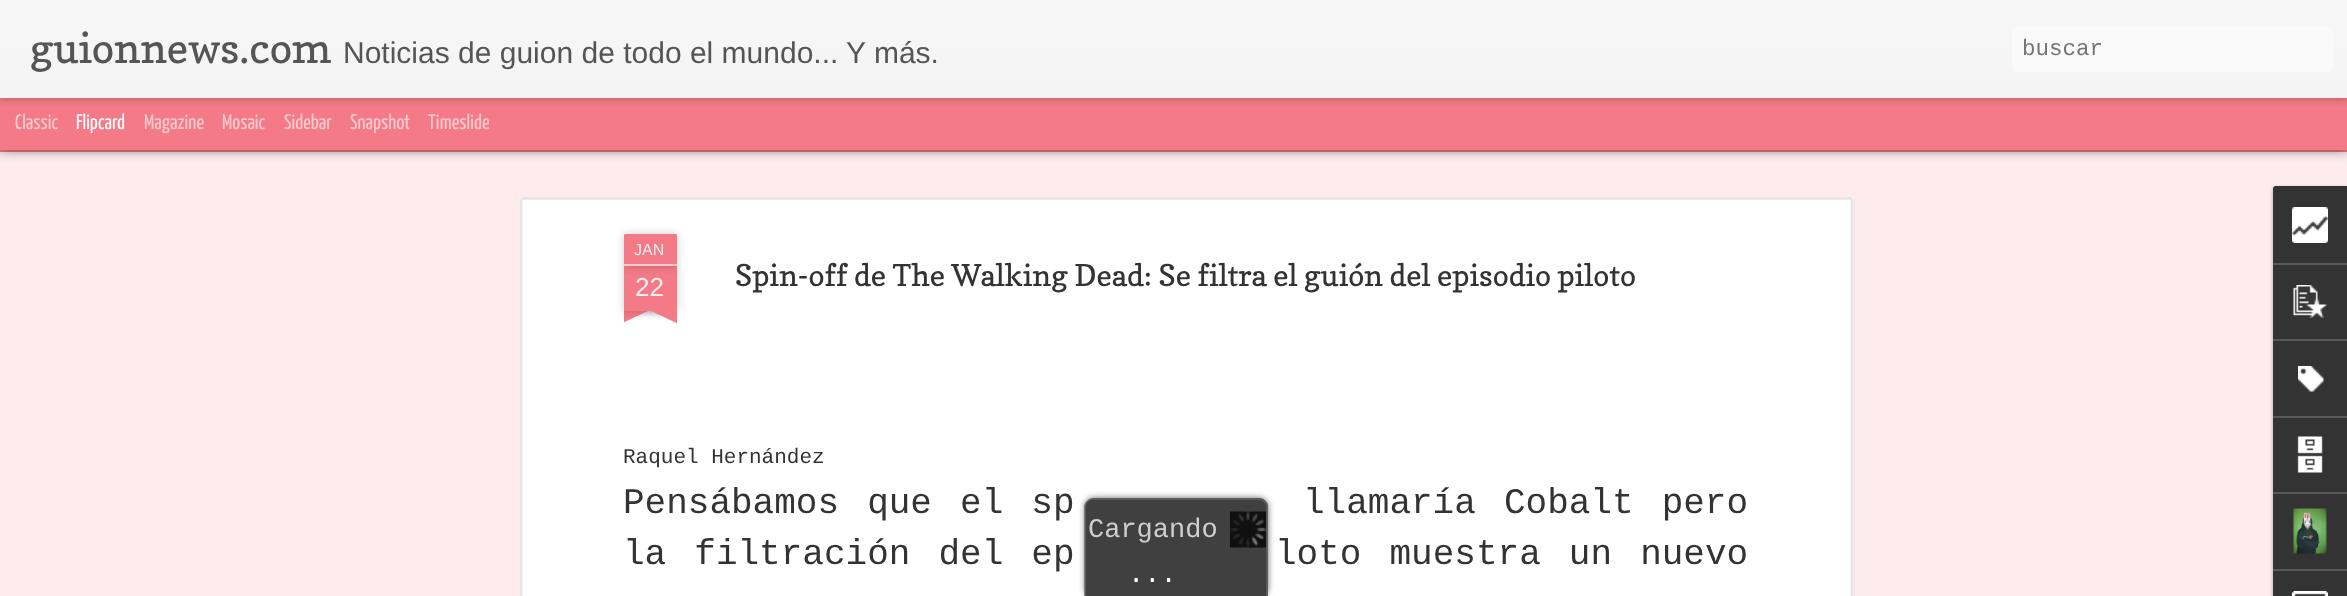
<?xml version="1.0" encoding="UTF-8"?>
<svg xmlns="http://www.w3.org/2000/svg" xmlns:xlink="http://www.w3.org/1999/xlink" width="2347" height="596">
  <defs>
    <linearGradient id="g1" gradientUnits="userSpaceOnUse" x1="0" y1="0" x2="0" y2="98"><stop offset="0" stop-color="#f7f7f7" /><stop offset="1" stop-color="#f4f4f4" /></linearGradient>
    <clipPath id="clip1"><rect x="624" y="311" width="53" height="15" /></clipPath>
    <clipPath id="clip2"><rect x="624" y="311" width="53" height="15" /></clipPath>
    <clipPath id="clip3"><path d="M 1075 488 h 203 v 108 h -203 z m 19 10 h 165 c 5 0 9 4 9 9 v 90 h -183 v -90 c 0 -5 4 -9 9 -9 z" clip-rule="evenodd" /></clipPath>
  </defs>
  <rect width="100%" height="100%" fill="#f37a86" />
  <rect y="152" width="2347" height="444" fill="#fdebed" />
  <rect y="98" width="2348" height="52" fill="#000000" fill-opacity="0.5" filter="blur(6px)" />
  <rect y="98" width="2347" height="52" fill="#f37a86" />
  <rect width="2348" height="98" fill="#000000" fill-opacity="0.3" filter="blur(4px)" />
  <rect width="2347" height="98" fill="url(#g1)" />
  <rect x="2012" y="27" width="321" height="45" rx="5" fill="#fafafa" />
  <rect x="519" y="197" width="1335" height="399" fill="#ffffff" />
  <image x="519" y="197" width="1336" height="399" xlink:href="image1.png" />
  <rect x="624" y="266" width="53" height="45" fill="#000000" fill-opacity="0.2" filter="blur(4px)" />
  <rect x="624" y="266" width="53" height="45" fill="#f37a86" />
  <rect x="624" y="234" width="53" height="32" rx="1.5" fill="#000000" fill-opacity="0.2" filter="blur(4px)" />
  <path d="M 625.5 234 h 50 c 1 0 1.5 0.5 1.5 1.5 v 30.5 h -53 v -30.5 c 0 -1 0.5 -1.5 1.5 -1.5 z" fill="#f37a86" />
  <rect x="624" y="264" width="53" height="2" fill="#facacf" />
  <g clip-path="url(#clip1)">
    <rect x="611" y="296" width="75" height="15" fill="#000000" fill-opacity="0.2" filter="blur(4px)" />
  </g>
  <g clip-path="url(#clip2)">
    <path d="M 610 312 l 68 -32 l 6 14 l -68 32 z" fill="#f37a86" />
  </g>
  <g clip-path="url(#clip1)">
    <rect x="615" y="296" width="75" height="15" fill="#000000" fill-opacity="0.2" filter="blur(4px)" />
  </g>
  <g clip-path="url(#clip2)">
    <path d="M 621 280 l 68 32 l -6 14 l -68 -32 z" fill="#f37a86" />
  </g>
  <rect x="2273" y="188" width="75" height="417" rx="3" fill="#000000" fill-opacity="0.3" filter="blur(2px)" />
  <path d="M 2276 186 h 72 v 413 h -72 c -1.5 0 -3 -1.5 -3 -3 v -407 c 0 -1.5 1.5 -3 3 -3 z" fill="#333333" />
  <path d="M 2276 186 h 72 v 77 h -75 v -74 c 0 -1.5 1.5 -3 3 -3 z" fill="#333333" />
  <image x="2292" y="207" width="36" height="36" xlink:href="image2.png" />
  <rect x="2273" y="263" width="74" height="2" fill="#585858" />
  <image x="2293" y="285" width="34" height="33" xlink:href="image3.png" />
  <rect x="2273" y="339" width="74" height="2" fill="#585858" />
  <image x="2298" y="366" width="26" height="26" xlink:href="image4.png" />
  <rect x="2273" y="416" width="74" height="2" fill="#585858" />
  <image x="2297" y="436" width="26" height="37" xlink:href="image5.png" />
  <rect x="2273" y="492" width="74" height="2" fill="#585858" />
  <image x="2293" y="508" width="34" height="46" xlink:href="image6.png" />
  <rect x="2273" y="569" width="74" height="2" fill="#585858" />
  <image x="2292" y="591" width="36" height="5" xlink:href="image7.png" />
  <g clip-path="url(#clip3)">
    <rect x="1085" y="498" width="183" height="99" rx="9" fill="#333333" fill-opacity="0.75" filter="blur(3px)" />
  </g>
  <path d="M 1094 498 h 165 c 5 0 9 4 9 9 v 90 h -183 v -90 c 0 -5 4 -9 9 -9 z" fill="#000000" fill-opacity="0.75" />
  <path d="M 1094 498 h 164 c 5 0 10 4 10 9 v 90 h -184 v -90 c 0 -5 5 -9 10 -9 z m 0 2 h 164 c 5 0 8 3 8 7 v 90 h -180 v -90 c 0 -4 3 -7 8 -7 z" fill="#666666" fill-opacity="0.75" fill-rule="evenodd" />
  <image x="1230" y="511" width="36" height="37" xlink:href="image8.png" />
  <text x="30" y="63" style="font-family: Copse; font-size: 42px; fill: #555555">guionnews.com</text>
  <text x="343" y="63" style="font-family: Liberation Sans; font-size: 30px; fill: #555555">Noticias de guion de todo el mundo... Y más.</text>
  <text x="2022" y="55" style="font-family: Liberation Mono; font-size: 22.5px; fill: #757575">buscar</text>
  <text x="15" y="129" style="font-family: Yanone Kaffeesatz; font-size: 21px; font-weight: 200; fill: #facacf">Classic</text>
  <text x="76" y="129" style="font-family: Yanone Kaffeesatz; font-size: 21px; font-weight: 200; fill: #ffffff">Flipcard</text>
  <text x="144" y="129" style="font-family: Yanone Kaffeesatz; font-size: 21px; font-weight: 200; fill: #facacf">Magazine</text>
  <text x="222" y="129" style="font-family: Yanone Kaffeesatz; font-size: 21px; font-weight: 200; fill: #facacf">Mosaic</text>
  <text x="284" y="129" style="font-family: Yanone Kaffeesatz; font-size: 21px; font-weight: 200; fill: #facacf">Sidebar</text>
  <text x="350" y="129" style="font-family: Yanone Kaffeesatz; font-size: 21px; font-weight: 200; fill: #facacf">Snapshot</text>
  <text x="428" y="129" style="font-family: Yanone Kaffeesatz; font-size: 21px; font-weight: 200; fill: #facacf">Timeslide</text>
  <text x="634" y="255" style="font-family: Liberation Sans; font-size: 16px; fill: #eeeeee">JAN</text>
  <text x="635" y="296" style="font-family: Liberation Sans; font-size: 26px; fill: #eeeeee">22</text>
  <text x="735" y="286" style="font-family: Copse; font-size: 30px; fill: #333333">Spin-off de The Walking Dead: Se filtra el guión del episodio piloto</text>
  <text x="623" y="463" style="font-family: Liberation Mono; font-size: 21px; fill: #333333">Raquel Hernández</text>
  <text x="623" y="513" word-spacing="6.5" style="font-family: Liberation Mono; font-size: 36px; fill: #333333">Pensábamos que el sp</text>
  <text x="1303" y="513" word-spacing="6.5" style="font-family: Liberation Mono; font-size: 36px; fill: #333333">llamaría Cobalt pero</text>
  <text x="623" y="564" word-spacing="6.5" style="font-family: Liberation Mono; font-size: 36px; fill: #333333">la filtración del ep</text>
  <text x="1275" y="564" word-spacing="6.5" style="font-family: Liberation Mono; font-size: 36px; fill: #333333">loto muestra un nuevo</text>
  <text x="1088" y="537" style="font-family: Liberation Mono; font-size: 27px; fill: #cfcfcf">Cargando</text>
  <text x="1128" y="582" style="font-family: Liberation Mono; font-size: 27px; fill: #ffffff">...</text>
</svg>
